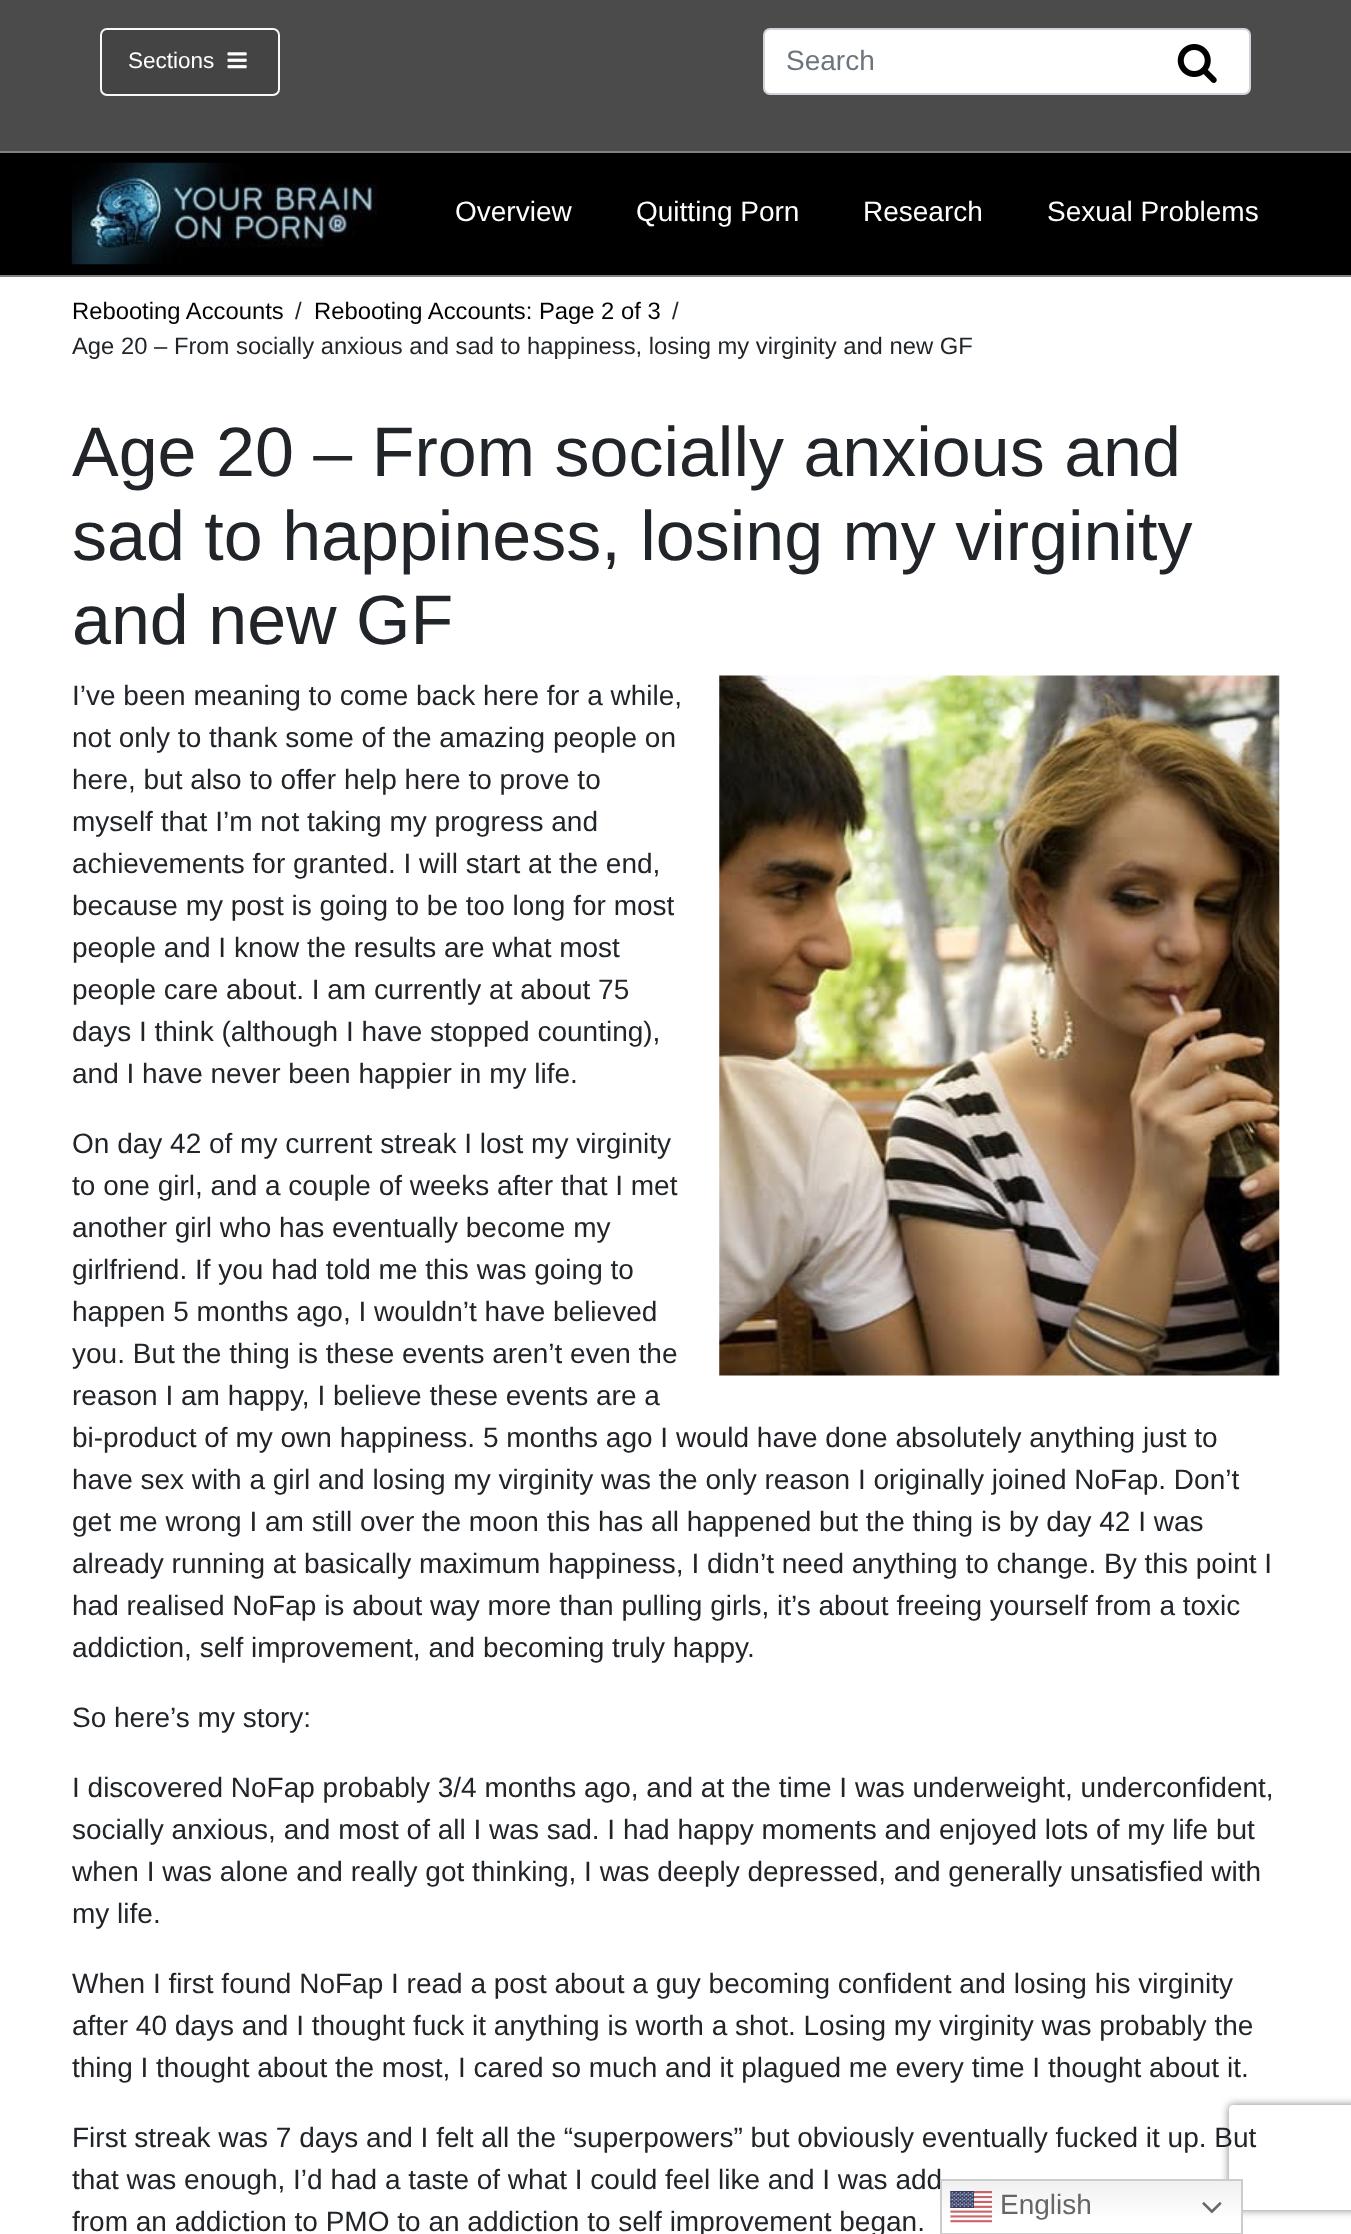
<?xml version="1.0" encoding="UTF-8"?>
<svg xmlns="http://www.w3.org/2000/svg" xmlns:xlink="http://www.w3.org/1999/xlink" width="1351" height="2234">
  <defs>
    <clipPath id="clip1"><path d="M 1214 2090 h 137 v 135 h -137 z m 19 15 h 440 c 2 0 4 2 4 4 v 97 c 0 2 -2 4 -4 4 h -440 c -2 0 -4 -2 -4 -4 v -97 c 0 -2 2 -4 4 -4 z" clip-rule="evenodd" /></clipPath>
    <linearGradient id="g1" gradientUnits="userSpaceOnUse" x1="1091" y1="2179" x2="1091" y2="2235"><stop offset="0" stop-color="#efefef" /><stop offset="0.7" stop-color="#ffffff" /></linearGradient>
  </defs>
  <rect width="100%" height="100%" fill="#ffffff" />
  <rect width="1351" height="151" fill="#4b4b4b" />
  <rect x="101" y="29" width="178" height="66" rx="6" fill="#444444" stroke="#f8f9fa" stroke-width="2" />
  <image x="227" y="52" width="20" height="17" xlink:href="image1.png" />
  <rect x="764" y="29" width="486" height="65" rx="6" fill="#ffffff" stroke="#ced4da" stroke-width="2" />
  <image x="1177" y="44" width="40" height="39" xlink:href="image2.png" />
  <rect y="153" width="1351" height="122" fill="#000000" />
  <rect y="151" width="1351" height="2" fill="#808080" />
  <rect y="275" width="1351" height="2" fill="#808080" />
  <image x="71" y="162" width="307" height="103" xlink:href="image3.png" />
  <image x="719" y="675" width="561" height="701" xlink:href="image4.png" />
  <g clip-path="url(#clip1)">
    <rect x="1229" y="2105" width="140" height="105" rx="4" fill="#808080" filter="blur(4.5px)" />
  </g>
  <rect x="942" y="2181" width="299" height="38" fill="url(#g1)" />
  <text x="128" y="68" style="font-family: Liberation Sans; font-size: 22.5px; fill: #ffffff">Sections</text>
  <text x="786" y="70" style="font-family: Liberation Sans; font-size: 28px; fill: #6c757d">Search</text>
  <text x="455" y="221" style="font-family: Liberation Sans; font-size: 28px; fill: #ffffff">Overview</text>
  <text x="636" y="221" style="font-family: Liberation Sans; font-size: 28px; fill: #ffffff">Quitting Porn</text>
  <text x="863" y="221" style="font-family: Liberation Sans; font-size: 28px; fill: #ffffff">Research</text>
  <text x="1047" y="221" style="font-family: Liberation Sans; font-size: 28px; fill: #ffffff">Sexual Problems</text>
  <text x="72" y="319" style="font-family: Liberation Sans; font-size: 23.8px; fill: #000000">Rebooting Accounts</text>
  <text x="295" y="319" style="font-family: Liberation Sans; font-size: 23.8px; fill: #212529">/</text>
  <text x="314" y="319" style="font-family: Liberation Sans; font-size: 23.8px; fill: #000000">Rebooting Accounts: Page 2 of 3</text>
  <text x="672" y="319" style="font-family: Liberation Sans; font-size: 23.8px; fill: #212529">/</text>
  <text x="72" y="354" style="font-family: Liberation Sans; font-size: 23.8px; fill: #212529">Age 20 – From socially anxious and sad to happiness, losing my virginity and new GF</text>
  <text x="72" y="476" style="font-family: Liberation Sans; font-size: 70px; fill: #212529">Age 20 – From socially anxious and</text>
  <text x="72" y="560" style="font-family: Liberation Sans; font-size: 70px; fill: #212529">sad to happiness, losing my virginity</text>
  <text x="72" y="644" style="font-family: Liberation Sans; font-size: 70px; fill: #212529">and new GF</text>
  <text x="72" y="705" style="font-family: Liberation Sans; font-size: 28px; fill: #212529">I’ve been meaning to come back here for a while,</text>
  <text x="72" y="747" style="font-family: Liberation Sans; font-size: 28px; fill: #212529">not only to thank some of the amazing people on</text>
  <text x="72" y="789" style="font-family: Liberation Sans; font-size: 28px; fill: #212529">here, but also to offer help here to prove to</text>
  <text x="72" y="831" style="font-family: Liberation Sans; font-size: 28px; fill: #212529">myself that I’m not taking my progress and</text>
  <text x="72" y="873" style="font-family: Liberation Sans; font-size: 28px; fill: #212529">achievements for granted. I will start at the end,</text>
  <text x="72" y="915" style="font-family: Liberation Sans; font-size: 28px; fill: #212529">because my post is going to be too long for most</text>
  <text x="72" y="957" style="font-family: Liberation Sans; font-size: 28px; fill: #212529">people and I know the results are what most</text>
  <text x="72" y="999" style="font-family: Liberation Sans; font-size: 28px; fill: #212529">people care about. I am currently at about 75</text>
  <text x="72" y="1041" style="font-family: Liberation Sans; font-size: 28px; fill: #212529">days I think (although I have stopped counting),</text>
  <text x="72" y="1083" style="font-family: Liberation Sans; font-size: 28px; fill: #212529">and I have never been happier in my life.</text>
  <text x="72" y="1153" style="font-family: Liberation Sans; font-size: 28px; fill: #212529">On day 42 of my current streak I lost my virginity</text>
  <text x="72" y="1195" style="font-family: Liberation Sans; font-size: 28px; fill: #212529">to one girl, and a couple of weeks after that I met</text>
  <text x="72" y="1237" style="font-family: Liberation Sans; font-size: 28px; fill: #212529">another girl who has eventually become my</text>
  <text x="72" y="1279" style="font-family: Liberation Sans; font-size: 28px; fill: #212529">girlfriend. If you had told me this was going to</text>
  <text x="72" y="1321" style="font-family: Liberation Sans; font-size: 28px; fill: #212529">happen 5 months ago, I wouldn’t have believed</text>
  <text x="72" y="1363" style="font-family: Liberation Sans; font-size: 28px; fill: #212529">you. But the thing is these events aren’t even the</text>
  <text x="72" y="1405" style="font-family: Liberation Sans; font-size: 28px; fill: #212529">reason I am happy, I believe these events are a</text>
  <text x="72" y="1447" style="font-family: Liberation Sans; font-size: 28px; fill: #212529">bi-product of my own happiness. 5 months ago I would have done absolutely anything just to</text>
  <text x="72" y="1489" style="font-family: Liberation Sans; font-size: 28px; fill: #212529">have sex with a girl and losing my virginity was the only reason I originally joined NoFap. Don’t</text>
  <text x="72" y="1531" style="font-family: Liberation Sans; font-size: 28px; fill: #212529">get me wrong I am still over the moon this has all happened but the thing is by day 42 I was</text>
  <text x="72" y="1573" style="font-family: Liberation Sans; font-size: 28px; fill: #212529">already running at basically maximum happiness, I didn’t need anything to change. By this point I</text>
  <text x="72" y="1615" style="font-family: Liberation Sans; font-size: 28px; fill: #212529">had realised NoFap is about way more than pulling girls, it’s about freeing yourself from a toxic</text>
  <text x="72" y="1657" style="font-family: Liberation Sans; font-size: 28px; fill: #212529">addiction, self improvement, and becoming truly happy.</text>
  <text x="72" y="1727" style="font-family: Liberation Sans; font-size: 28px; fill: #212529">So here’s my story:</text>
  <text x="72" y="1797" style="font-family: Liberation Sans; font-size: 28px; fill: #212529">I discovered NoFap probably 3/4 months ago, and at the time I was underweight, underconfident,</text>
  <text x="72" y="1839" style="font-family: Liberation Sans; font-size: 28px; fill: #212529">socially anxious, and most of all I was sad. I had happy moments and enjoyed lots of my life but</text>
  <text x="72" y="1881" style="font-family: Liberation Sans; font-size: 28px; fill: #212529">when I was alone and really got thinking, I was deeply depressed, and generally unsatisfied with</text>
  <text x="72" y="1923" style="font-family: Liberation Sans; font-size: 28px; fill: #212529">my life.</text>
  <text x="72" y="1993" style="font-family: Liberation Sans; font-size: 28px; fill: #212529">When I first found NoFap I read a post about a guy becoming confident and losing his virginity</text>
  <text x="72" y="2035" style="font-family: Liberation Sans; font-size: 28px; fill: #212529">after 40 days and I thought fuck it anything is worth a shot. Losing my virginity was probably the</text>
  <text x="72" y="2077" style="font-family: Liberation Sans; font-size: 28px; fill: #212529">thing I thought about the most, I cared so much and it plagued me every time I thought about it.</text>
  <text x="72" y="2147" style="font-family: Liberation Sans; font-size: 28px; fill: #212529">First streak was 7 days and I felt all the “superpowers” but obviously eventually fucked it up. But</text>
  <text x="72" y="2189" style="font-family: Liberation Sans; font-size: 28px; fill: #212529">that was enough, I’d had a taste of what I could feel like and I was add</text>
  <text x="72" y="2231" style="font-family: Liberation Sans; font-size: 28px; fill: #212529">from an addiction to PMO to an addiction to self improvement began.</text>
  <rect x="941" y="2180" width="301" height="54" fill="none" stroke="#cccccc" stroke-width="2" />
  <image x="950" y="2191" width="42" height="32" xlink:href="image5.png" />
  <text x="1000" y="2214" style="font-family: Liberation Sans; font-size: 28px; fill: #666666">English</text>
  <image x="1202" y="2202" width="20" height="12" xlink:href="image6.png" />
</svg>
